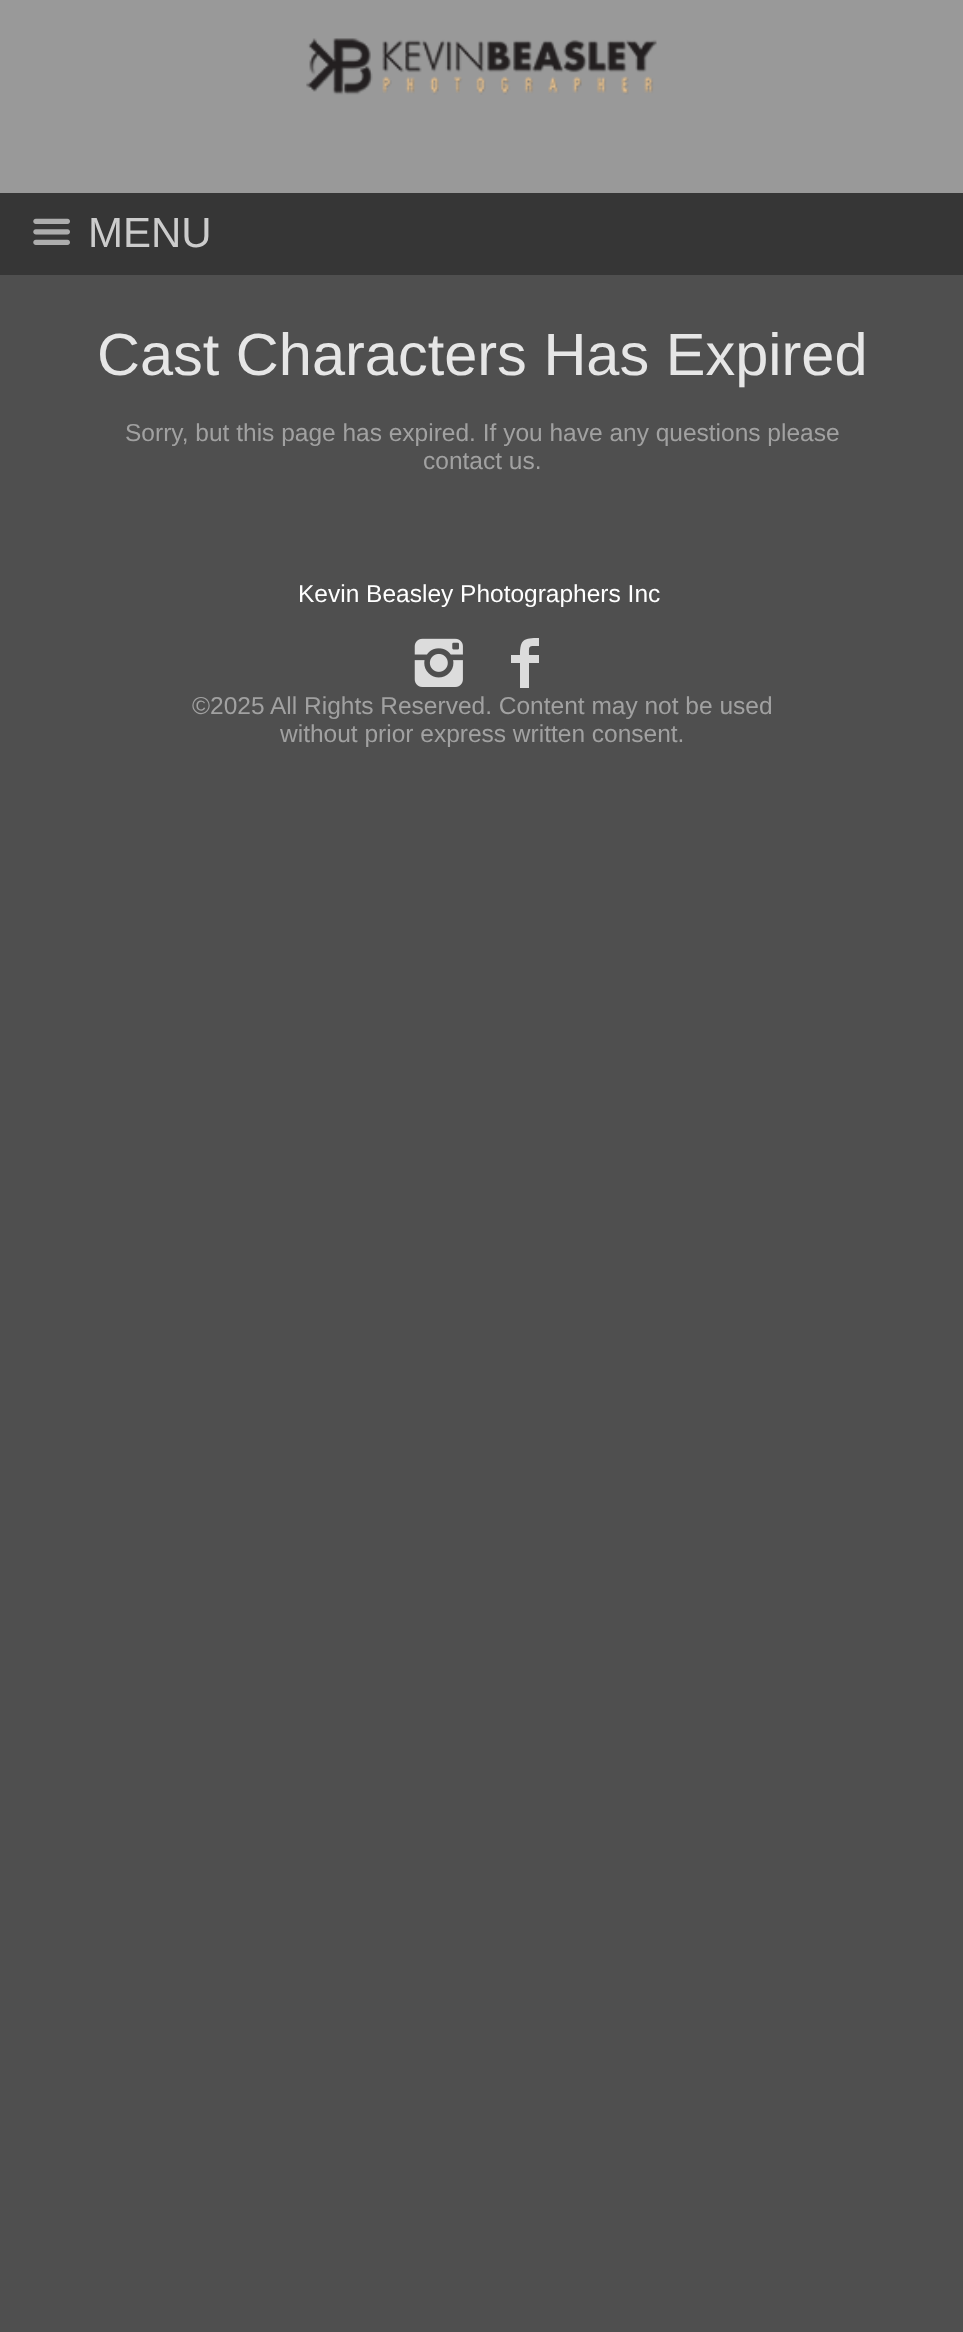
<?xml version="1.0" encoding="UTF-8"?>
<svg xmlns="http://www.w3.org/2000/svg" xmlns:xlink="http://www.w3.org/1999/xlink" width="963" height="2332">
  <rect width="100%" height="100%" fill="#4f4f4f" />
  <rect width="963" height="193" fill="#999999" />
  <image x="306" y="38" width="351" height="57" xlink:href="image1.png" />
  <rect y="193" width="963" height="82" fill="#363636" />
  <image x="33" y="218" width="37" height="27" xlink:href="image2.png" />
  <image x="414" y="638" width="49" height="49" xlink:href="image3.png" />
  <path d="M 539 646 c -11 0 -10 -1 -10 9 h 10 v 8 h -10 v 25 h -9 v -25 h -9 v -8 h 9 c 0 -16 4 -17 19 -17 z" fill="#dcdcdc" />
  <text x="88" y="247" style="font-family: Liberation Sans; font-size: 42px; fill: #cccccc">MENU</text>
  <text x="97" y="375" style="font-family: Liberation Sans; font-size: 59.5px; fill: #e6e6e6">Cast Characters Has Expired</text>
  <text x="125" y="441" style="font-family: Liberation Sans; font-size: 24.5px; fill: #a1a1a1">Sorry, but this page has expired. If you have any questions please</text>
  <text x="423" y="469" style="font-family: Liberation Sans; font-size: 24.5px; fill: #a1a1a1">contact us.</text>
  <text x="298" y="602" style="font-family: Liberation Sans; font-size: 24.5px; fill: #ffffff">Kevin Beasley Photographers Inc</text>
  <text x="192" y="714" style="font-family: Liberation Sans; font-size: 24.5px; fill: #a1a1a1">©2025 All Rights Reserved. Content may not be used</text>
  <text x="280" y="742" style="font-family: Liberation Sans; font-size: 24.5px; fill: #a1a1a1">without prior express written consent.</text>
</svg>
